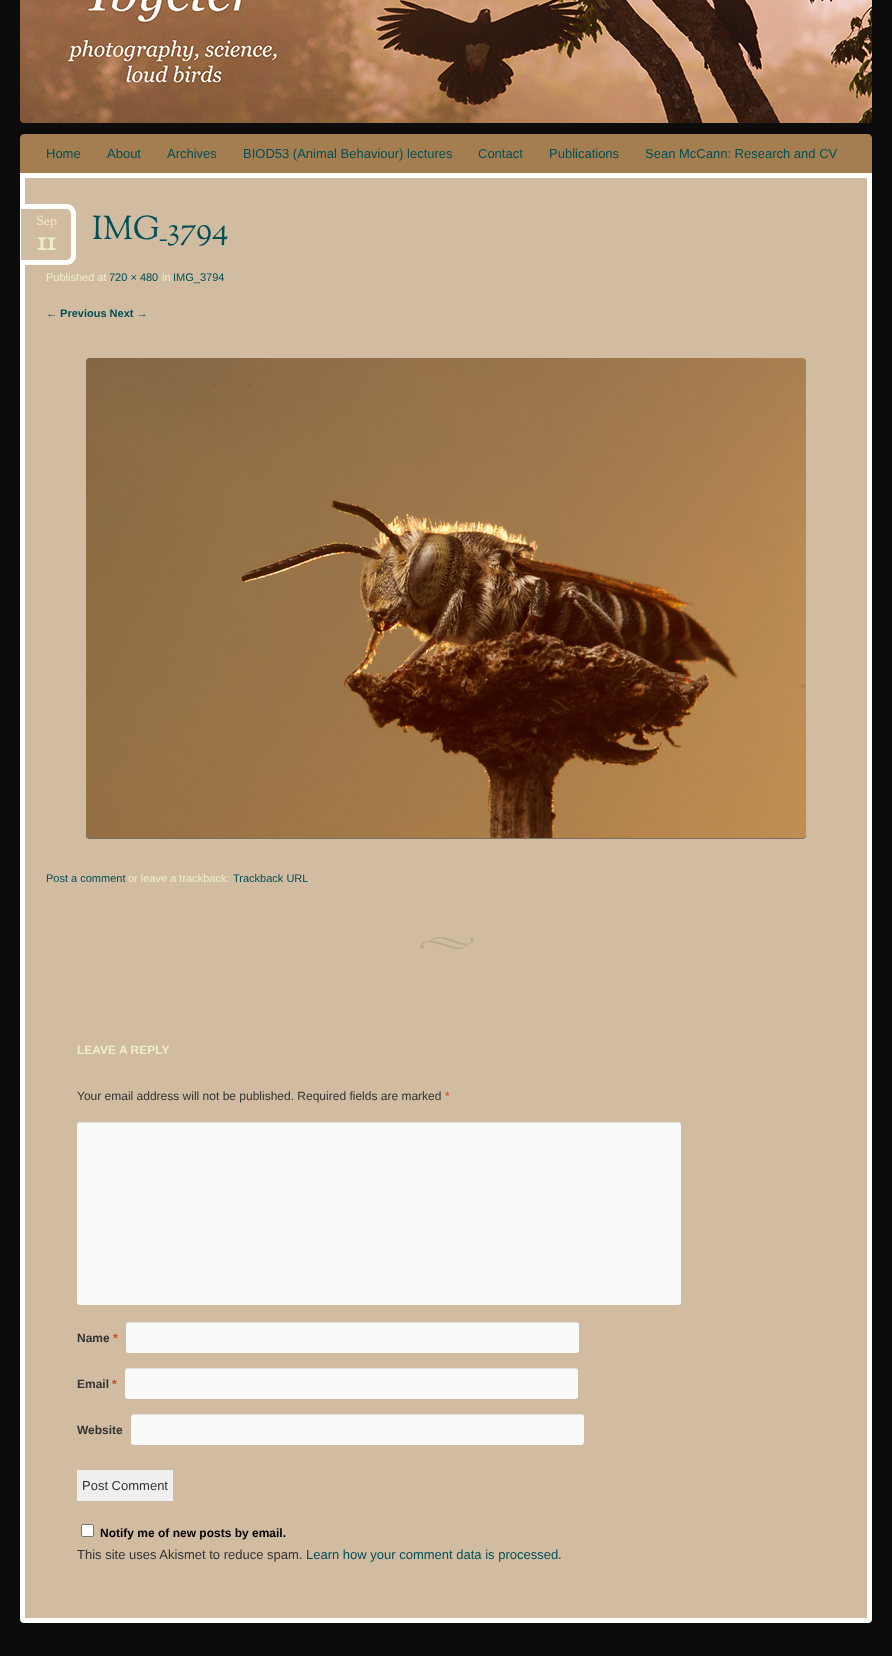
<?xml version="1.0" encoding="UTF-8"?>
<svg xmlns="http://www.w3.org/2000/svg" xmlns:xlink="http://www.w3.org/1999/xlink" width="892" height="1656">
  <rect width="100%" height="100%" fill="#0d0c0c" />
  <image x="20" y="0" width="852" height="123" xlink:href="image1.png" />
  <path d="M 24 134 h 844 c 2 0 4 2 4 4 v 35 h -852 v -35 c 0 -2 2 -4 4 -4 z" fill="#a47e50" />
  <path d="M 22.5 175.5 h 847 v 1443.5 c 0 1 -0.5 1.5 -1.5 1.5 h -844 c -1 0 -1.5 -0.5 -1.5 -1.5 z" fill="#d1bba1" stroke="#ffffff" stroke-width="5" />
  <image x="420" y="937" width="54" height="12" xlink:href="image2.png" />
  <path d="M 21 209 h 45 c 3 0 5 2 5 5 v 41 c 0 3 -2 5 -5 5 h -45 z" fill="#d1bba1" />
  <path d="M 21 204 h 45 c 6 0 10 4 10 10 v 41 c 0 6 -4 10 -10 10 h -45 z m 0 5 h 45 c 3 0 5 2 5 5 v 41 c 0 3 -2 5 -5 5 h -45 z" fill="#ffffff" fill-rule="evenodd" />
  <rect x="86" y="359" width="720" height="480" rx="4" fill="#000000" fill-opacity="0.4" filter="blur(0.5px)" />
  <image x="86" y="358" width="720" height="480" xlink:href="image3.png" />
  <rect x="77" y="1122" width="604" height="183" rx="3" fill="#fafafa" />
  <path d="M 80 1123 h 598 c 2 0 3 1 3 3 v -1 c 0 -2 -1 -3 -3 -3 h -598 c -2 0 -3 1 -3 3 v 1 c 0 -2 1 -3 3 -3 z" fill="#000000" fill-opacity="0.1" />
  <rect x="126" y="1322" width="453" height="31" rx="3" fill="#fafafa" />
  <path d="M 129 1323 h 447 c 2 0 3 1 3 3 c 0 -2 0 -3 -2 -4 h -449 l -2 2 v 2 c 0 -2 1 -3 3 -3 z" fill="#000000" fill-opacity="0.1" />
  <rect x="125" y="1368" width="453" height="31" rx="3" fill="#fafafa" />
  <path d="M 128 1369 h 447 c 2 0 3 1 3 3 c 0 -2 0 -3 -2 -4 h -449 l -2 2 v 2 c 0 -2 1 -3 3 -3 z" fill="#000000" fill-opacity="0.1" />
  <rect x="131" y="1414" width="453" height="31" rx="3" fill="#fafafa" />
  <path d="M 134 1415 h 447 c 2 0 3 1 3 3 v -2 l -2 -2 h -449 c -2 1 -2 2 -2 4 c 0 -2 1 -3 3 -3 z" fill="#000000" fill-opacity="0.1" />
  <rect x="77" y="1470" width="96" height="31" fill="#efefef" />
  <rect x="81.5" y="1524.5" width="12" height="12" rx="1.5" fill="#ffffff" stroke="#767676" />
  <text x="46" y="158" style="font-family: Liberation Sans; font-size: 13px; fill: #005056">Home</text>
  <text x="107" y="158" style="font-family: Liberation Sans; font-size: 13px; fill: #005056">About</text>
  <text x="167" y="158" style="font-family: Liberation Sans; font-size: 13px; fill: #005056">Archives</text>
  <text x="243" y="158" style="font-family: Liberation Sans; font-size: 13px; fill: #005056">BIOD53 (Animal Behaviour) lectures</text>
  <text x="478" y="158" style="font-family: Liberation Sans; font-size: 13px; fill: #005056">Contact</text>
  <text x="549" y="158" style="font-family: Liberation Sans; font-size: 13px; fill: #005056">Publications</text>
  <text x="645" y="158" style="font-family: Liberation Sans; font-size: 13px; fill: #005056">Sean McCann: Research and CV</text>
  <text x="36" y="225" style="font-family: Sorts Mill Goudy; font-size: 13px; fill: #efeecc">Sep</text>
  <text x="37" y="250" style="font-family: Sorts Mill Goudy; font-size: 28px; font-weight: bold; fill: #efeecc">11</text>
  <text x="92" y="239" style="font-family: Sorts Mill Goudy; font-size: 33px; fill: #005056">IMG_3794</text>
  <text x="46" y="281" style="font-family: Liberation Sans; font-size: 11px; fill: #efeecc">Published at</text>
  <text x="109" y="281" style="font-family: Liberation Sans; font-size: 11px; fill: #005056">720 × 480</text>
  <text x="162" y="281" style="font-family: Liberation Sans; font-size: 11px; fill: #efeecc">in</text>
  <text x="173" y="281" style="font-family: Liberation Sans; font-size: 11px; fill: #005056">IMG_3794</text>
  <text x="46" y="317" style="font-family: Liberation Sans; font-size: 11px; font-weight: bold; fill: #005056">← Previous Next →</text>
  <text x="46" y="882" style="font-family: Liberation Sans; font-size: 11px; fill: #005056">Post a comment</text>
  <text x="128" y="882" style="font-family: Liberation Sans; font-size: 11px; fill: #efeecc">or leave a trackback:</text>
  <text x="233" y="882" style="font-family: Liberation Sans; font-size: 11px; fill: #005056">Trackback URL</text>
  <text x="308" y="882" style="font-family: Liberation Sans; font-size: 11px; fill: #efeecc">.</text>
  <text x="77" y="1054" style="font-family: Liberation Sans; font-size: 12px; font-weight: bold; fill: #efeecc">LEAVE A REPLY</text>
  <text x="77" y="1100" style="font-family: Liberation Sans; font-size: 12px; fill: #333333">Your email address will not be published. Required fields are marked</text>
  <text x="445" y="1100" style="font-family: Liberation Sans; font-size: 12px; fill: #cc4d22">*</text>
  <text x="77" y="1342" style="font-family: Liberation Sans; font-size: 12px; font-weight: bold; fill: #333333">Name</text>
  <text x="113" y="1342" style="font-family: Liberation Sans; font-size: 12px; font-weight: bold; fill: #cc4d22">*</text>
  <text x="77" y="1388" style="font-family: Liberation Sans; font-size: 12px; font-weight: bold; fill: #333333">Email</text>
  <text x="112" y="1388" style="font-family: Liberation Sans; font-size: 12px; font-weight: bold; fill: #cc4d22">*</text>
  <text x="77" y="1434" style="font-family: Liberation Sans; font-size: 12px; font-weight: bold; fill: #333333">Website</text>
  <text x="82" y="1490" style="font-family: Liberation Sans; font-size: 13px; fill: #333333">Post Comment</text>
  <text x="100" y="1537" style="font-family: Liberation Sans; font-size: 12px; font-weight: bold; fill: #000000">Notify me of new posts by email.</text>
  <text x="77" y="1559" style="font-family: Liberation Sans; font-size: 13px; fill: #333333">This site uses Akismet to reduce spam.</text>
  <text x="306" y="1559" style="font-family: Liberation Sans; font-size: 13px; fill: #005056">Learn how your comment data is processed</text>
  <text x="558" y="1559" style="font-family: Liberation Sans; font-size: 13px; fill: #333333">.</text>
</svg>
